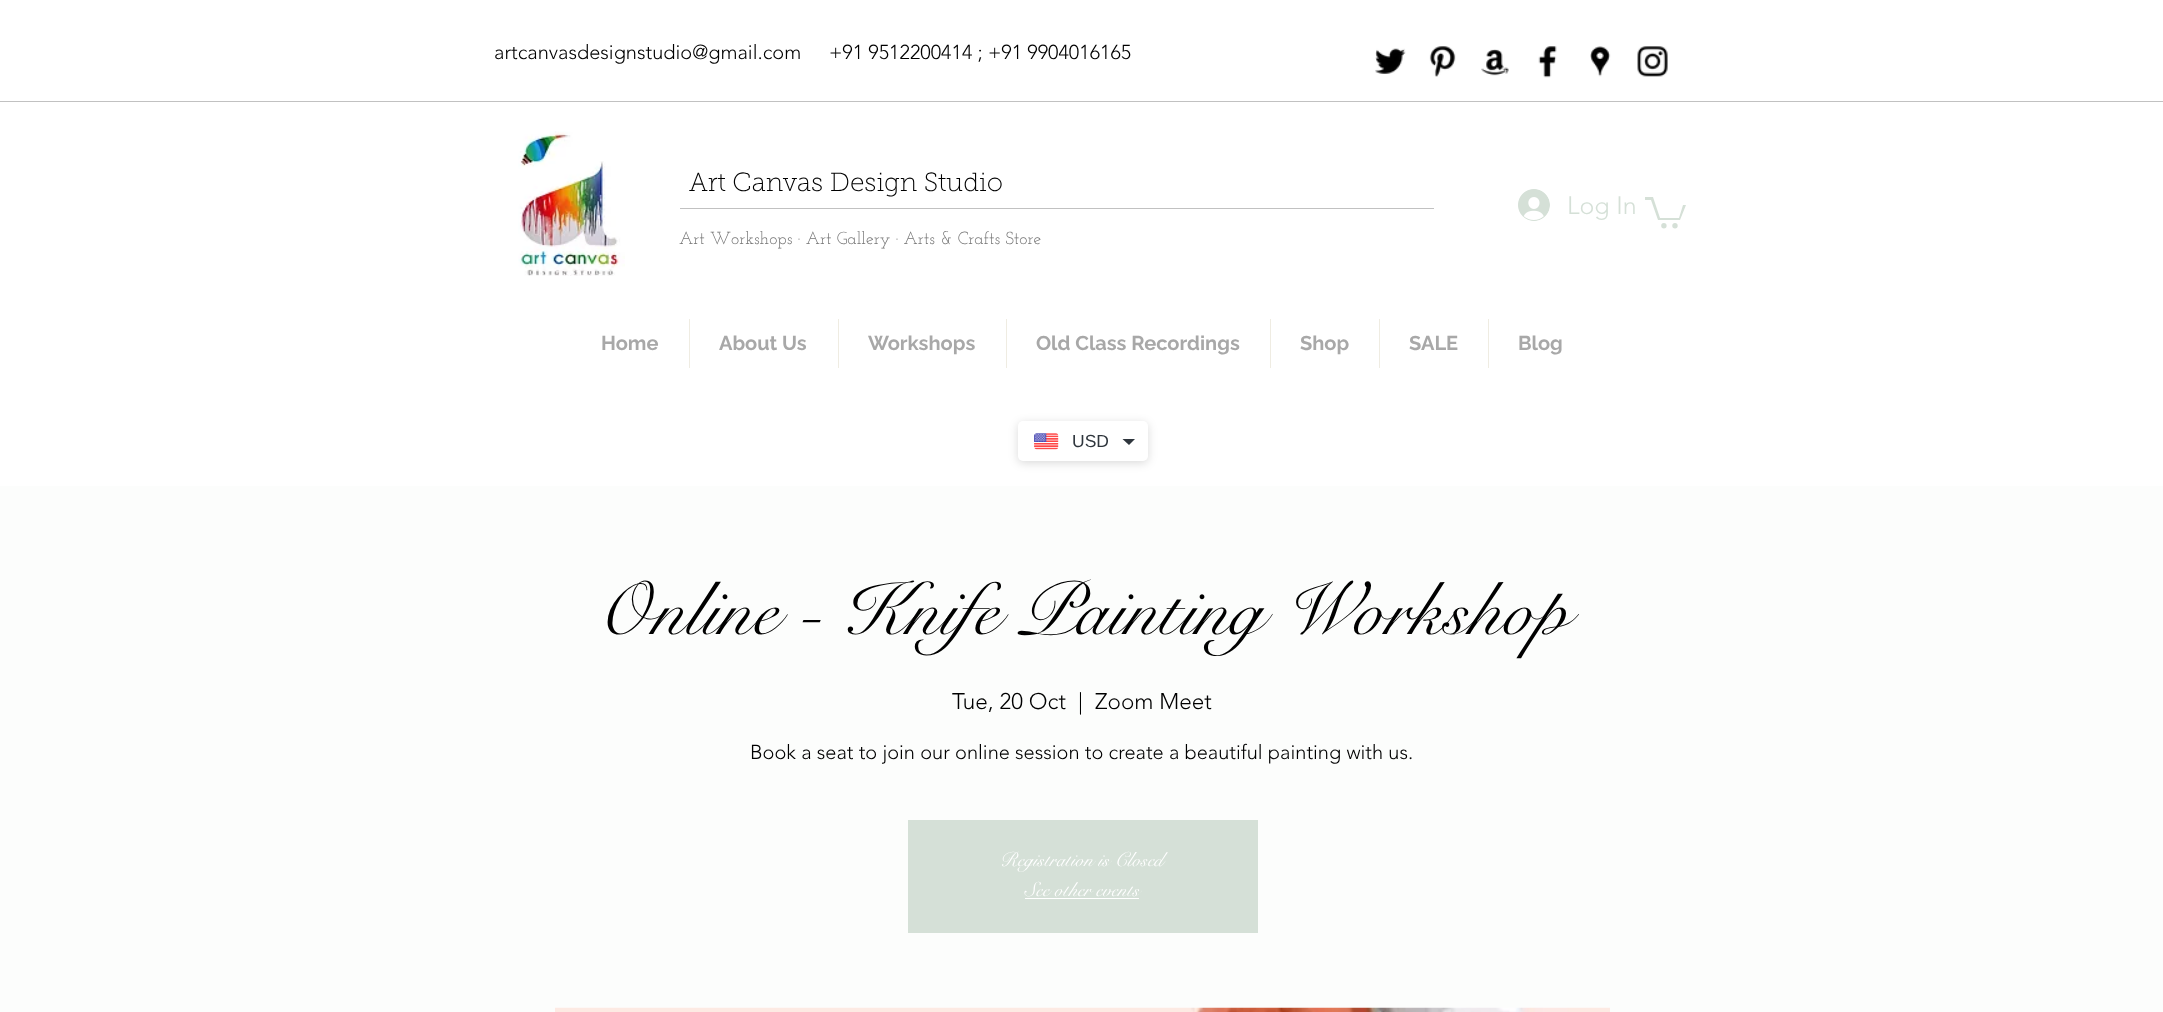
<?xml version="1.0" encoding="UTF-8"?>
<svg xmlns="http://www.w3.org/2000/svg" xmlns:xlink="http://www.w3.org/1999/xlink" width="2163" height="1012">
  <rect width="100%" height="100%" fill="#ffffff" />
  <image x="1375" y="48" width="31" height="26" xlink:href="image1.png" />
  <image x="1429" y="46" width="27" height="31" xlink:href="image2.png" />
  <image x="1481" y="49" width="28" height="27" xlink:href="image3.png" />
  <image x="1538" y="46" width="19" height="32" xlink:href="image4.png" />
  <image x="1590" y="46" width="21" height="31" xlink:href="image5.png" />
  <image x="1637" y="46" width="31" height="31" xlink:href="image6.png" />
  <rect y="101" width="2163" height="1" fill="#c1c1c1" />
  <image x="518" y="131" width="107" height="145" xlink:href="image7.png" />
  <rect x="680" y="208" width="754" height="1" fill="#c1c1c1" />
  <image x="1518" y="189" width="32" height="32" xlink:href="image8.png" />
  <path d="M 1686 205 l -6 15 h -22 l -7 -20 h -6 v -3 h 8 l 7 21 h 19 l 4 -13" fill="#d5e0d7" />
  <circle cx="1675" cy="225.7" r="2.7" fill="#d5e0d7" />
  <circle cx="1663.9" cy="225.7" r="2.7" fill="#d5e0d7" />
  <rect x="689" y="319" width="1" height="49" fill="#efece2" />
  <rect x="838" y="319" width="1" height="49" fill="#efece2" />
  <rect x="1006" y="319" width="1" height="49" fill="#efece2" />
  <rect x="1270" y="319" width="1" height="49" fill="#efece2" />
  <rect x="1379" y="319" width="1" height="49" fill="#efece2" />
  <rect x="1488" y="319" width="1" height="49" fill="#efece2" />
  <rect x="1018" y="423" width="130" height="40" rx="5" fill="#000000" fill-opacity="0.15" filter="blur(5px)" />
  <rect x="1018" y="421" width="130" height="40" rx="5" fill="#ffffff" />
  <image x="1034" y="433" width="25" height="17" xlink:href="image9.png" />
  <path d="M 1122.5 439 h 12.5 l -6 6 z" fill="#2f363d" />
  <rect y="486" width="2163" height="526" fill="#fcfdfc" />
  <rect x="908" y="820" width="350" height="113" fill="#d5e0d7" />
  <rect x="1025" y="898" width="114" height="1" fill="#ffffff" />
  <image x="555" y="1007" width="1055" height="5" xlink:href="image10.png" />
  <text x="494" y="59" style="font-family: 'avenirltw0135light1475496'; font-size: 20px; font-weight: 300; fill: #000000">artcanvasdesignstudio@gmail.com</text>
  <text x="829" y="59" style="font-family: 'avenirltw0135light1475496'; font-size: 20px; font-weight: 300; fill: #000000">+91 9512200414 ; +91 9904016165</text>
  <text x="689" y="191" style="font-family: 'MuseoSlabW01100'; font-size: 26.25px; font-weight: 100; fill: #000000">Art Canvas Design Studio</text>
  <text x="1567" y="214" style="font-family: 'avenirltw0135light1475496'; font-size: 25px; font-weight: 300; fill: #d5e0d7">Log In</text>
  <text x="679" y="244" style="font-family: Josefin Slab; font-size: 17.5px; fill: #757575">Art Workshops · Art Gallery · Arts &amp; Crafts Store</text>
  <text x="601" y="350" style="font-family: Raleway; font-size: 20px; font-weight: bold; fill: #a8a8a8">Home</text>
  <text x="719" y="350" style="font-family: Raleway; font-size: 20px; font-weight: bold; fill: #a8a8a8">About Us</text>
  <text x="868" y="350" style="font-family: Raleway; font-size: 20px; font-weight: bold; fill: #a8a8a8">Workshops</text>
  <text x="1036" y="350" style="font-family: Raleway; font-size: 20px; font-weight: bold; fill: #a8a8a8">Old Class Recordings</text>
  <text x="1300" y="350" style="font-family: Raleway; font-size: 20px; font-weight: bold; fill: #a8a8a8">Shop</text>
  <text x="1409" y="350" style="font-family: Raleway; font-size: 20px; font-weight: bold; fill: #a8a8a8">SALE</text>
  <text x="1518" y="350" style="font-family: Raleway; font-size: 20px; font-weight: bold; fill: #a8a8a8">Blog</text>
  <text x="1072" y="447" style="font-family: Liberation Sans; font-size: 17.5px; fill: #2f363d">USD</text>
  <text x="595" y="634" style="font-family: 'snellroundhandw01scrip'; font-size: 75px; fill: #000000">Online - Knife Painting Workshop</text>
  <text x="952" y="709" style="font-family: 'avenirltw0135light1475496'; font-size: 22.5px; font-weight: 300; fill: #000000">Tue, 20 Oct</text>
  <text x="1078" y="709" style="font-family: 'avenirltw0135light1475496'; font-size: 22.5px; font-weight: 300; fill: #000000">|</text>
  <text x="1095" y="709" style="font-family: 'avenirltw0135light1475496'; font-size: 22.5px; font-weight: 300; fill: #000000">Zoom Meet</text>
  <text x="750" y="759" style="font-family: 'avenirltw0135light1475496'; font-size: 20px; font-weight: 300; fill: #000000">Book a seat to join our online session to create a beautiful painting with us.</text>
  <text x="1000" y="866" style="font-family: 'snellroundhandw01scrip'; font-size: 20px; fill: #ffffff">Registration is Closed</text>
  <text x="1025" y="896" style="font-family: 'snellroundhandw01scrip'; font-size: 20px; fill: #ffffff">See other events</text>
</svg>
